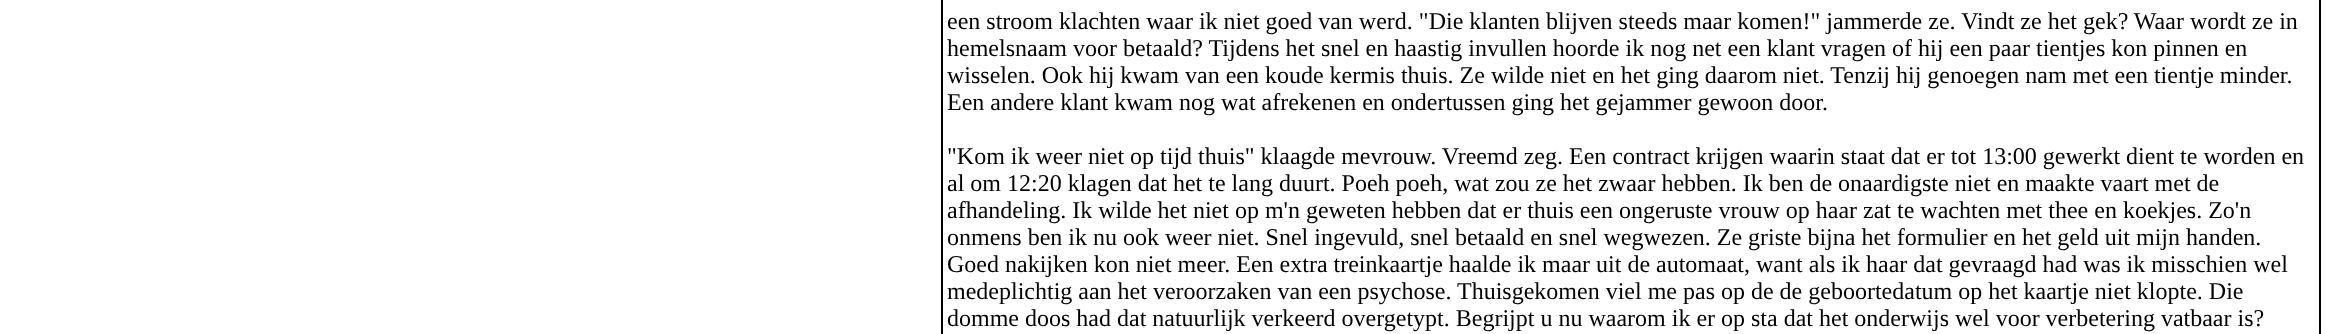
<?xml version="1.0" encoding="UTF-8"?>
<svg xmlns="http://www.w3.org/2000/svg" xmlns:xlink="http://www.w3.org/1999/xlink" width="2337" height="334">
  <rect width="100%" height="100%" fill="#ffffff" />
  <rect x="942" y="-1" width="1378" height="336" fill="none" stroke="#000000" stroke-width="2" />
  <text x="947" y="29" style="font-family: Liberation Serif; font-size: 24px; fill: #000000">een stroom klachten waar ik niet goed van werd. "Die klanten blijven steeds maar komen!" jammerde ze. Vindt ze het gek? Waar wordt ze in</text>
  <text x="947" y="56" style="font-family: Liberation Serif; font-size: 24px; fill: #000000">hemelsnaam voor betaald? Tijdens het snel en haastig invullen hoorde ik nog net een klant vragen of hij een paar tientjes kon pinnen en</text>
  <text x="947" y="83" style="font-family: Liberation Serif; font-size: 24px; fill: #000000">wisselen. Ook hij kwam van een koude kermis thuis. Ze wilde niet en het ging daarom niet. Tenzij hij genoegen nam met een tientje minder.</text>
  <text x="947" y="110" style="font-family: Liberation Serif; font-size: 24px; fill: #000000">Een andere klant kwam nog wat afrekenen en ondertussen ging het gejammer gewoon door.</text>
  <text x="947" y="164" style="font-family: Liberation Serif; font-size: 24px; fill: #000000">"Kom ik weer niet op tijd thuis" klaagde mevrouw. Vreemd zeg. Een contract krijgen waarin staat dat er tot 13:00 gewerkt dient te worden en</text>
  <text x="947" y="191" style="font-family: Liberation Serif; font-size: 24px; fill: #000000">al om 12:20 klagen dat het te lang duurt. Poeh poeh, wat zou ze het zwaar hebben. Ik ben de onaardigste niet en maakte vaart met de</text>
  <text x="947" y="218" style="font-family: Liberation Serif; font-size: 24px; fill: #000000">afhandeling. Ik wilde het niet op m'n geweten hebben dat er thuis een ongeruste vrouw op haar zat te wachten met thee en koekjes. Zo'n</text>
  <text x="947" y="245" style="font-family: Liberation Serif; font-size: 24px; fill: #000000">onmens ben ik nu ook weer niet. Snel ingevuld, snel betaald en snel wegwezen. Ze griste bijna het formulier en het geld uit mijn handen.</text>
  <text x="947" y="272" style="font-family: Liberation Serif; font-size: 24px; fill: #000000">Goed nakijken kon niet meer. Een extra treinkaartje haalde ik maar uit de automaat, want als ik haar dat gevraagd had was ik misschien wel</text>
  <text x="947" y="299" style="font-family: Liberation Serif; font-size: 24px; fill: #000000">medeplichtig aan het veroorzaken van een psychose. Thuisgekomen viel me pas op de de geboortedatum op het kaartje niet klopte. Die</text>
  <text x="947" y="326" style="font-family: Liberation Serif; font-size: 24px; fill: #000000">domme doos had dat natuurlijk verkeerd overgetypt. Begrijpt u nu waarom ik er op sta dat het onderwijs wel voor verbetering vatbaar is?</text>
</svg>
